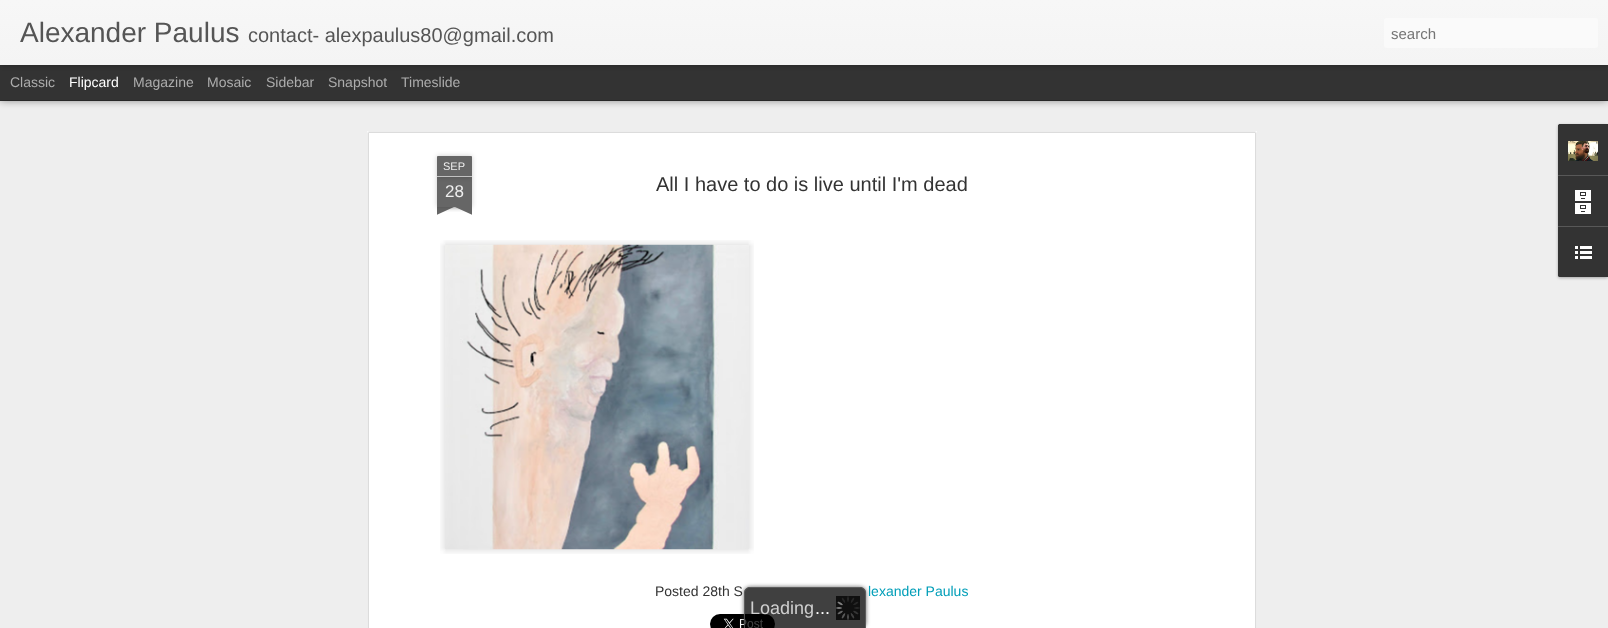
<?xml version="1.0" encoding="UTF-8"?>
<svg xmlns="http://www.w3.org/2000/svg" xmlns:xlink="http://www.w3.org/1999/xlink" width="1608" height="628">
  <defs>
    <linearGradient id="g1" gradientUnits="userSpaceOnUse" x1="0" y1="0" x2="0" y2="65"><stop offset="0" stop-color="#f7f7f7" /><stop offset="1" stop-color="#f4f4f4" /></linearGradient>
    <clipPath id="clip1"><rect x="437" y="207" width="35" height="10" /></clipPath>
    <clipPath id="clip2"><rect x="437" y="207" width="35" height="10" /></clipPath>
    <clipPath id="clip3"><path d="M 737 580 h 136 v 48 h -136 z m 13 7 h 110 c 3.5 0 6 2.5 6 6 v 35 h -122 v -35 c 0 -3.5 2.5 -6 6 -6 z" clip-rule="evenodd" /></clipPath>
  </defs>
  <rect width="100%" height="100%" fill="#333333" />
  <rect y="101" width="1608" height="527" fill="#eeeeee" />
  <rect y="65" width="1608" height="35" fill="#000000" fill-opacity="0.5" filter="blur(4px)" />
  <rect y="65" width="1608" height="35" fill="#333333" />
  <rect width="1608" height="65" fill="#000000" fill-opacity="0.3" filter="blur(2.5px)" />
  <rect width="1608" height="65" fill="url(#g1)" />
  <rect x="1384" y="18" width="214" height="30" rx="3" fill="#fafafa" />
  <rect x="367" y="131" width="890" height="497" fill="#ffffff" />
  <image x="367" y="131" width="890" height="497" xlink:href="image1.png" />
  <rect x="437" y="177" width="35" height="30" fill="#000000" fill-opacity="0.2" filter="blur(2.5px)" />
  <rect x="437" y="177" width="35" height="30" fill="#666666" />
  <rect x="437" y="156" width="35" height="21" rx="1" fill="#000000" fill-opacity="0.2" filter="blur(2.5px)" />
  <path d="M 438 156 h 33 c 0.5 0 1 0.5 1 1 v 20 h -35 v -20 c 0 -0.5 0.5 -1 1 -1 z" fill="#666666" />
  <rect x="437" y="176" width="35" height="1" fill="#c2c2c2" />
  <g clip-path="url(#clip1)">
    <rect x="428" y="197" width="50" height="10" fill="#000000" fill-opacity="0.2" filter="blur(2.5px)" />
  </g>
  <g clip-path="url(#clip2)">
    <path d="M 428 208 l 46 -21 l 4 9 l -46 21 z" fill="#666666" />
  </g>
  <g clip-path="url(#clip1)">
    <rect x="431" y="197" width="50" height="10" fill="#000000" fill-opacity="0.2" filter="blur(2.5px)" />
  </g>
  <g clip-path="url(#clip2)">
    <path d="M 435 187 l 46 21 l -4 9 l -46 -21 z" fill="#666666" />
  </g>
  <image x="440" y="240" width="314" height="314" xlink:href="image2.png" />
  <image x="463" y="244" width="252" height="306" xlink:href="image3.png" />
  <image x="710" y="614" width="65" height="14" xlink:href="image4.png" />
  <rect x="1558" y="125" width="50" height="153" rx="2" fill="#000000" fill-opacity="0.3" filter="blur(1.5px)" />
  <path d="M 1560 124 h 48 v 153 h -48 c -1 0 -2 -1 -2 -2 v -149 c 0 -1 1 -2 2 -2 z" fill="#333333" />
  <path d="M 1560 124 h 48 v 51 h -50 v -49 c 0 -1 1 -2 2 -2 z" fill="#333333" />
  <image x="1568" y="141" width="30" height="20" xlink:href="image5.png" />
  <rect x="1558" y="175" width="50" height="1" fill="#585858" />
  <image x="1575" y="190" width="16" height="24" xlink:href="image6.png" />
  <path d="M 1558 226 h 50 v 51 h -48 c -1 0 -2 -1 -2 -2 z" fill="#333333" />
  <rect x="1558" y="226" width="50" height="1" fill="#585858" />
  <image x="1575" y="246" width="17" height="13" xlink:href="image7.png" />
  <g clip-path="url(#clip3)">
    <rect x="744" y="587" width="122" height="41" rx="6" fill="#333333" fill-opacity="0.75" filter="blur(2px)" />
  </g>
  <path d="M 750 587 h 110 c 3.5 0 6 2.5 6 6 v 35 h -122 v -35 c 0 -3.5 2.5 -6 6 -6 z" fill="#000000" fill-opacity="0.75" />
  <path d="M 750 587 h 110 c 3 0 6 3 6 6 v 35 h -122 v -35 c 0 -3 3 -6 6 -6 z m 0 1 h 110 c 3 0 5 2 5 5 v 35 h -120 v -35 c 0 -3 2 -5 5 -5 z" fill="#666666" fill-opacity="0.75" fill-rule="evenodd" />
  <image x="836" y="596" width="24" height="24" xlink:href="image8.png" />
  <text x="20" y="42" style="font-family: Liberation Sans; font-size: 28px; fill: #555555">Alexander Paulus</text>
  <text x="248" y="42" style="font-family: Liberation Sans; font-size: 20px; fill: #555555">contact- alexpaulus80@gmail.com</text>
  <text x="1391" y="39" style="font-family: Liberation Sans; font-size: 15px; fill: #757575">search</text>
  <text x="10" y="87" style="font-family: Liberation Sans; font-size: 14px; fill: #adadad">Classic</text>
  <text x="69" y="87" style="font-family: Liberation Sans; font-size: 14px; fill: #ffffff">Flipcard</text>
  <text x="133" y="87" style="font-family: Liberation Sans; font-size: 14px; fill: #adadad">Magazine</text>
  <text x="207" y="87" style="font-family: Liberation Sans; font-size: 14px; fill: #adadad">Mosaic</text>
  <text x="266" y="87" style="font-family: Liberation Sans; font-size: 14px; fill: #adadad">Sidebar</text>
  <text x="328" y="87" style="font-family: Liberation Sans; font-size: 14px; fill: #adadad">Snapshot</text>
  <text x="401" y="87" style="font-family: Liberation Sans; font-size: 14px; fill: #adadad">Timeslide</text>
  <text x="443" y="170" style="font-family: Liberation Sans; font-size: 11px; fill: #eeeeee">SEP</text>
  <text x="445" y="197" style="font-family: Liberation Sans; font-size: 17px; fill: #eeeeee">28</text>
  <text x="656" y="191" style="font-family: Liberation Sans; font-size: 20px; fill: #333333">All I have to do is live until I'm dead</text>
  <text x="655" y="596" style="font-family: Liberation Sans; font-size: 14px; fill: #333333">Posted 28th S</text>
  <text x="868" y="596" style="font-family: Liberation Sans; font-size: 14px; fill: #009eb8">lexander Paulus</text>
  <text x="750" y="614" style="font-family: Liberation Sans; font-size: 18px; fill: #cfcfcf">Loading</text>
  <text x="815" y="614" style="font-family: Liberation Sans; font-size: 18px; fill: #ffffff">...</text>
</svg>
